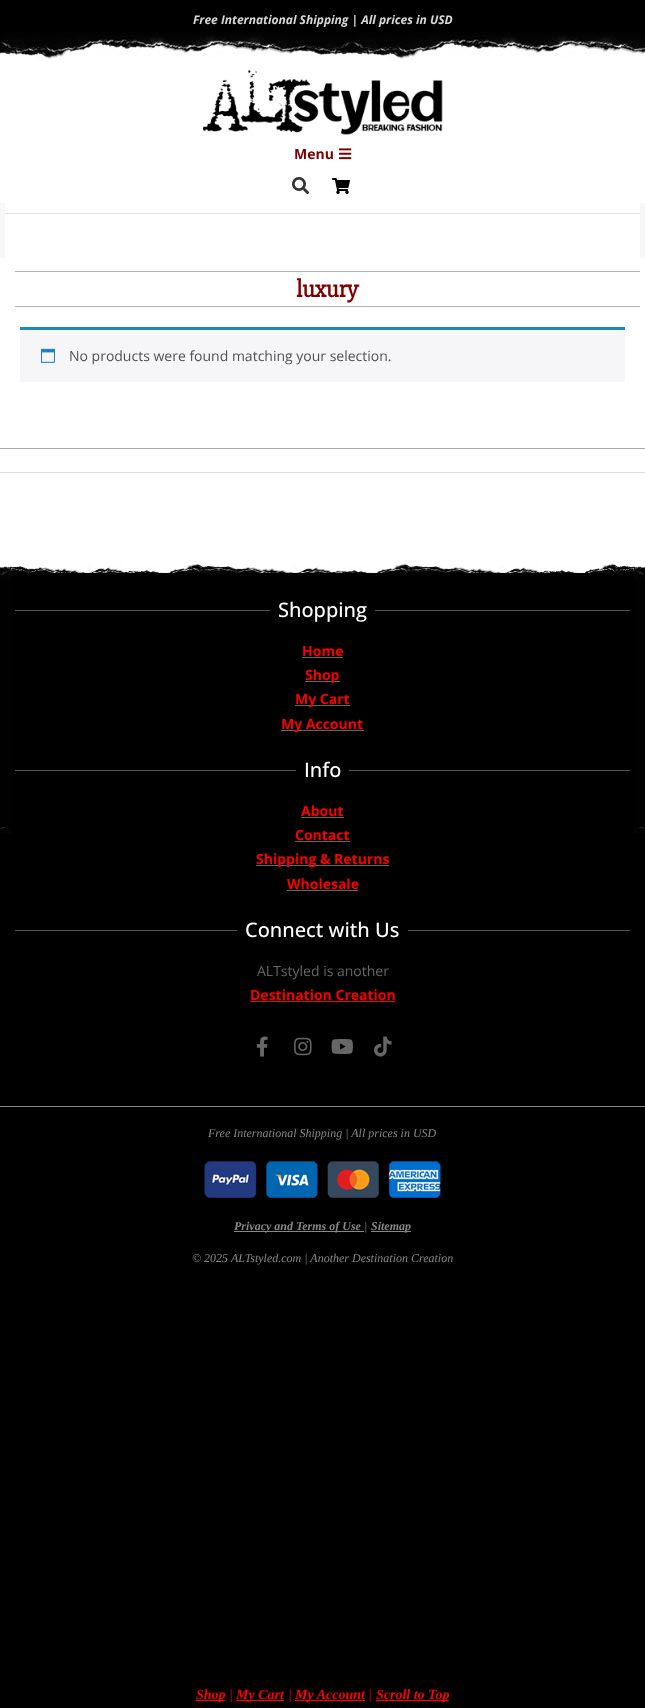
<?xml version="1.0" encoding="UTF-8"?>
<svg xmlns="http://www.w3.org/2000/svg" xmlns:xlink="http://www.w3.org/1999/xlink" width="645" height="1708">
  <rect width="100%" height="100%" fill="#000000" />
  <image x="0" y="32" width="645" height="28" xlink:href="image1.png" />
  <rect y="60" width="645" height="143" fill="#ffffff" />
  <image x="203" y="70" width="240" height="65" xlink:href="image2.png" />
  <image x="339" y="148" width="13" height="12" xlink:href="image3.png" />
  <image x="292" y="177" width="18" height="18" xlink:href="image4.png" />
  <image x="332" y="178" width="18" height="16" xlink:href="image5.png" />
  <rect y="203" width="645" height="55" fill="#f7f7f7" />
  <rect x="5" y="203" width="635" height="55" fill="#ffffff" />
  <rect x="5" y="213" width="635" height="1" fill="#e3e3e3" />
  <rect y="258" width="645" height="190" fill="#ffffff" />
  <rect x="15" y="271" width="625" height="1" fill="#b4b4b4" />
  <rect x="15" y="306" width="625" height="1" fill="#b4b4b4" />
  <rect x="20" y="330" width="605" height="52" fill="#f6f5f8" />
  <rect x="20" y="327" width="605" height="3" fill="#1e85be" />
  <image x="41" y="348" width="14" height="15" xlink:href="image6.png" />
  <rect y="449" width="645" height="113" fill="#ffffff" />
  <rect y="448" width="645" height="1" fill="#ababab" />
  <rect y="472" width="645" height="1" fill="#dbdbdb" />
  <image x="0" y="562" width="645" height="271" xlink:href="image7.png" />
  <rect x="15" y="610" width="255" height="1" fill="#545454" />
  <rect x="375" y="610" width="255" height="1" fill="#545454" />
  <rect x="302" y="657" width="41" height="1" fill="#666666" />
  <rect x="305" y="681" width="35" height="1" fill="#666666" />
  <rect x="295" y="705" width="55" height="1" fill="#666666" />
  <rect x="281" y="730" width="83" height="1" fill="#666666" />
  <rect x="15" y="770" width="281" height="1" fill="#545454" />
  <rect x="349" y="770" width="281" height="1" fill="#545454" />
  <rect x="301" y="817" width="43" height="1" fill="#666666" />
  <rect x="295" y="841" width="55" height="1" fill="#666666" />
  <rect x="256" y="865" width="133" height="1" fill="#666666" />
  <rect x="287" y="890" width="71" height="1" fill="#666666" />
  <rect x="15" y="930" width="222" height="1" fill="#545454" />
  <rect x="408" y="930" width="222" height="1" fill="#545454" />
  <rect x="250" y="1001" width="145" height="1" fill="#f80000" />
  <image x="256" y="1036" width="12" height="21" xlink:href="image8.png" />
  <image x="294" y="1037" width="18" height="19" xlink:href="image9.png" />
  <image x="331" y="1039" width="22" height="15" xlink:href="image10.png" />
  <image x="374" y="1036" width="18" height="21" xlink:href="image11.png" />
  <rect y="1106" width="645" height="1" fill="#888888" />
  <image x="204" y="1161" width="237" height="37" xlink:href="image12.png" />
  <rect x="234" y="1231" width="130" height="1" fill="#888888" />
  <rect x="371" y="1231" width="40" height="1" fill="#888888" />
  <rect x="196" y="1700" width="29" height="1" fill="#ff0000" />
  <rect x="236" y="1700" width="48" height="1" fill="#ff0000" />
  <rect x="295" y="1700" width="70" height="1" fill="#ff0000" />
  <rect x="376" y="1700" width="73" height="1" fill="#ff0000" />
  <text x="193" y="24" style="font-family: Open Sans; font-size: 12px; font-weight: bold; font-style: italic; fill: #d8d8d8">Free International Shipping | All prices in USD</text>
  <text x="294" y="159" style="font-family: Open Sans; font-size: 14px; font-weight: bold; fill: #7c0000">Menu</text>
  <text x="296" y="297" style="font-family: 'Slabo 27px'; font-size: 24.5px; font-weight: bold; fill: #7c0000">luxury</text>
  <text x="69" y="361" style="font-family: Open Sans; font-size: 14px; fill: #515151">No products were found matching your selection.</text>
  <text x="278" y="617" style="font-family: Open Sans; font-size: 20px; font-weight: 500; fill: #ffffff">Shopping</text>
  <text x="302" y="656" style="font-family: Open Sans; font-size: 14px; font-weight: bold; fill: #f80000">Home</text>
  <text x="305" y="680" style="font-family: Open Sans; font-size: 14px; font-weight: bold; fill: #f80000">Shop</text>
  <text x="295" y="704" style="font-family: Open Sans; font-size: 14px; font-weight: bold; fill: #f80000">My Cart</text>
  <text x="281" y="729" style="font-family: Open Sans; font-size: 14px; font-weight: bold; fill: #f80000">My Account</text>
  <text x="304" y="777" style="font-family: Open Sans; font-size: 20px; font-weight: 500; fill: #ffffff">Info</text>
  <text x="301" y="816" style="font-family: Open Sans; font-size: 14px; font-weight: bold; fill: #f80000">About</text>
  <text x="295" y="840" style="font-family: Open Sans; font-size: 14px; font-weight: bold; fill: #f80000">Contact</text>
  <text x="256" y="864" style="font-family: Open Sans; font-size: 14px; font-weight: bold; fill: #f80000">Shipping &amp; Returns</text>
  <text x="287" y="889" style="font-family: Open Sans; font-size: 14px; font-weight: bold; fill: #f80000">Wholesale</text>
  <text x="245" y="937" style="font-family: Open Sans; font-size: 20px; font-weight: 500; fill: #ffffff">Connect with Us</text>
  <text x="257" y="976" style="font-family: Open Sans; font-size: 14px; fill: #666666">ALTstyled is another</text>
  <text x="250" y="1000" style="font-family: Open Sans; font-size: 14px; font-weight: bold; fill: #f80000">Destination Creation</text>
  <text x="208" y="1137" style="font-family: Liberation Serif; font-size: 12px; font-style: italic; fill: #888888">Free International Shipping | All prices in USD</text>
  <text x="234" y="1230" style="font-family: Liberation Serif; font-size: 12px; font-weight: bold; font-style: italic; fill: #888888">Privacy and Terms of Use</text>
  <text x="364" y="1230" style="font-family: Liberation Serif; font-size: 12px; font-style: italic; fill: #888888">|</text>
  <text x="371" y="1230" style="font-family: Liberation Serif; font-size: 12px; font-weight: bold; font-style: italic; fill: #888888">Sitemap</text>
  <text x="192" y="1262" style="font-family: Liberation Serif; font-size: 12px; font-style: italic; fill: #888888">© 2025 ALTstyled.com | Another Destination Creation</text>
  <text x="196" y="1699" style="font-family: Liberation Serif; font-size: 14px; font-weight: bold; font-style: italic; fill: #ff0000">Shop</text>
  <text x="229" y="1699" style="font-family: Liberation Serif; font-size: 14px; font-style: italic; fill: #ff0000">|</text>
  <text x="236" y="1699" style="font-family: Liberation Serif; font-size: 14px; font-weight: bold; font-style: italic; fill: #ff0000">My Cart</text>
  <text x="288" y="1699" style="font-family: Liberation Serif; font-size: 14px; font-style: italic; fill: #ff0000">|</text>
  <text x="295" y="1699" style="font-family: Liberation Serif; font-size: 14px; font-weight: bold; font-style: italic; fill: #ff0000">My Account</text>
  <text x="368" y="1699" style="font-family: Liberation Serif; font-size: 14px; font-style: italic; fill: #ff0000">|</text>
  <text x="376" y="1699" style="font-family: Liberation Serif; font-size: 14px; font-weight: bold; font-style: italic; fill: #ff0000">Scroll to Top</text>
</svg>
